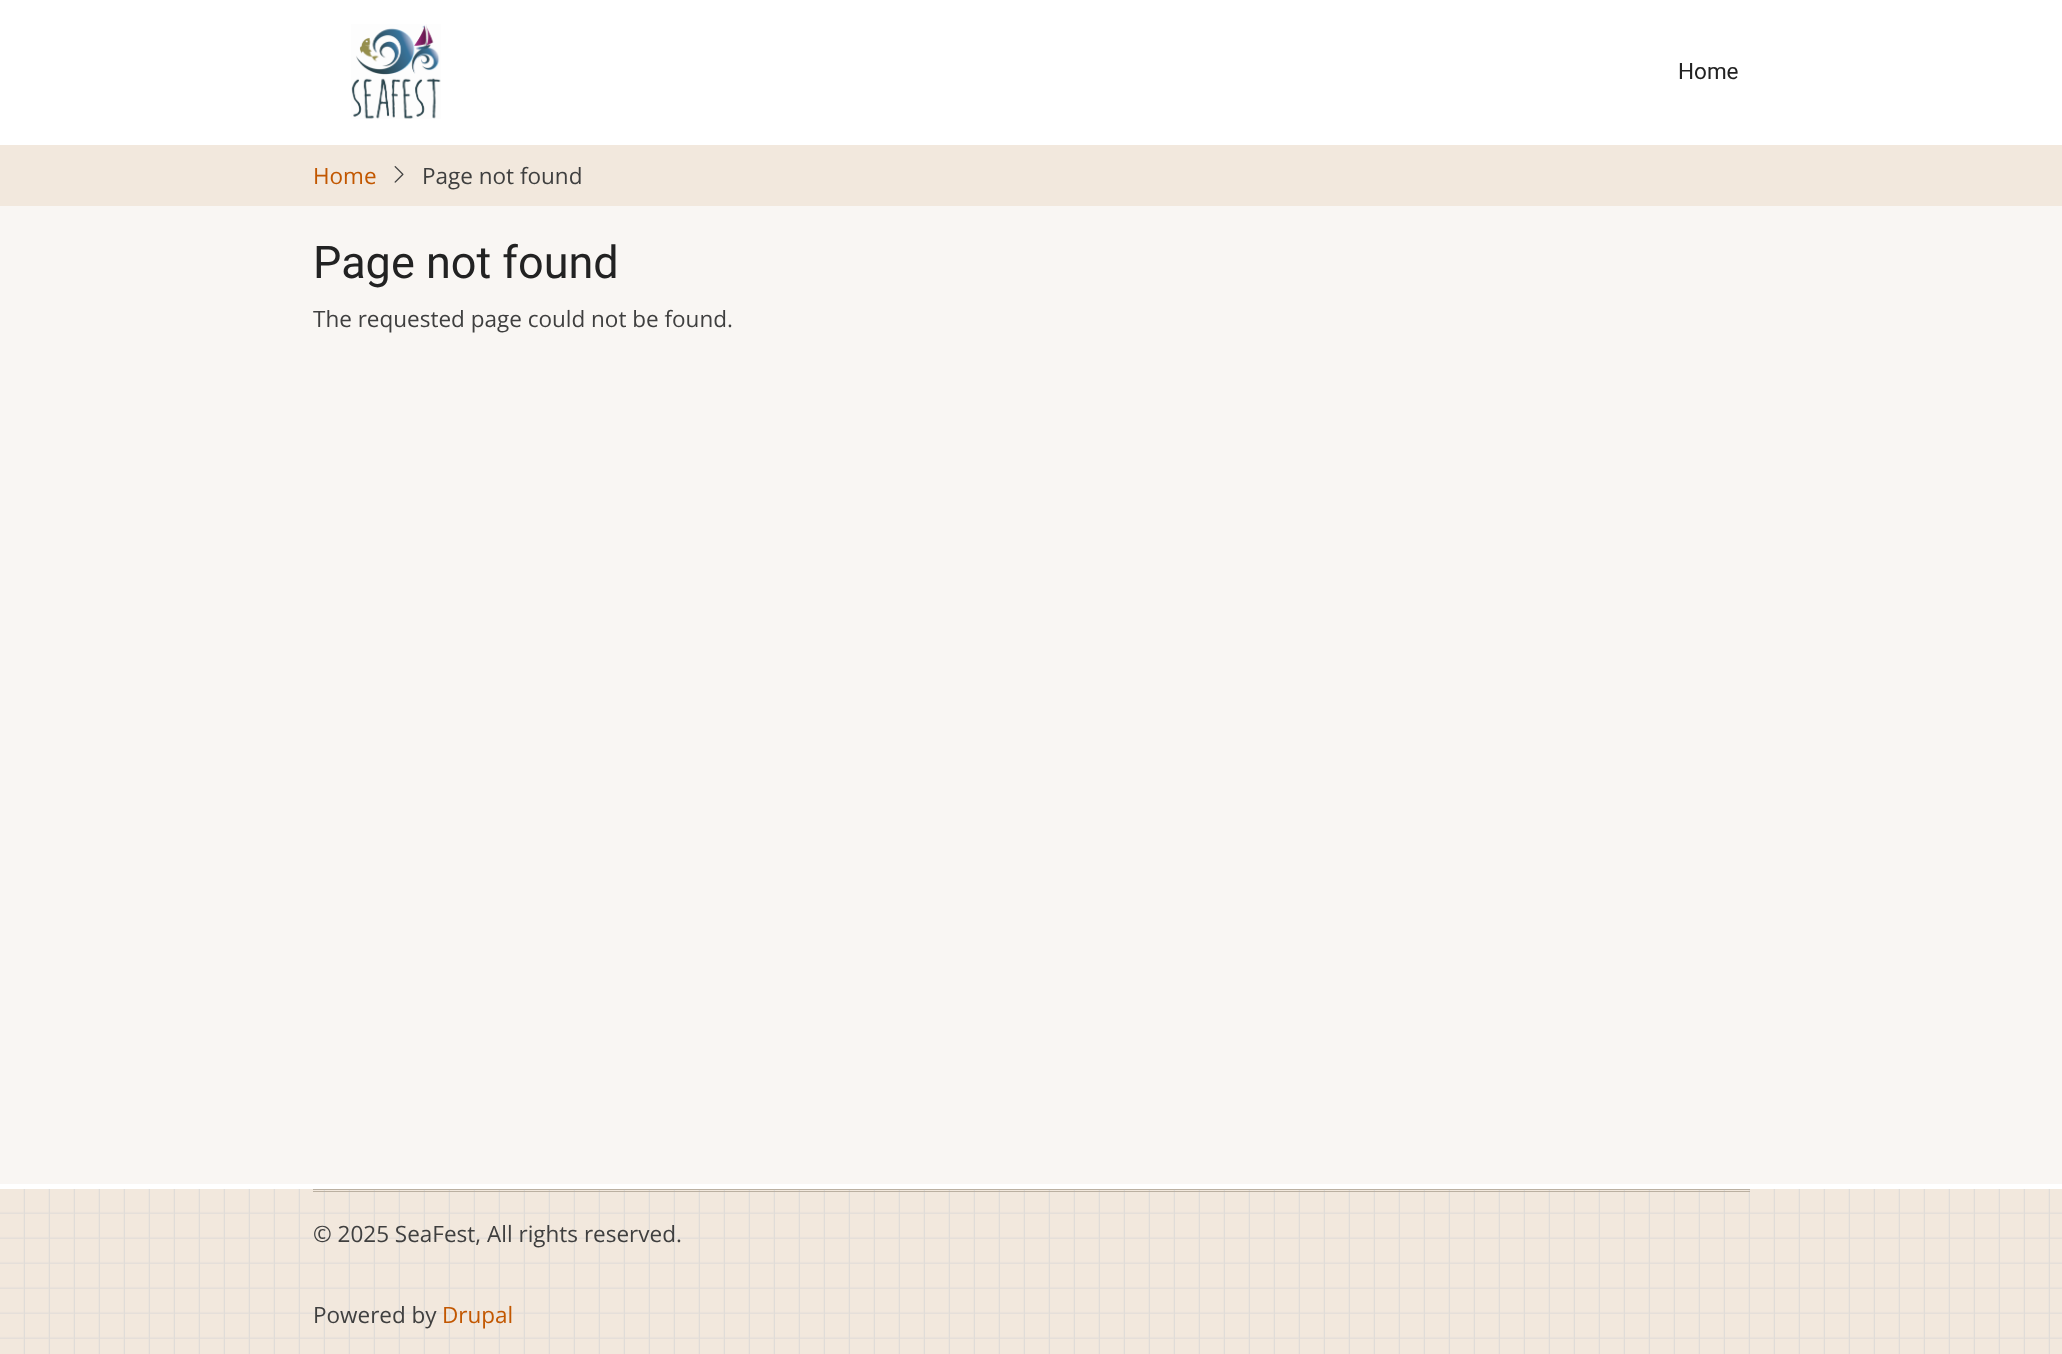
<?xml version="1.0" encoding="UTF-8"?>
<svg xmlns="http://www.w3.org/2000/svg" xmlns:xlink="http://www.w3.org/1999/xlink" width="2062" height="1354">
  <rect width="100%" height="100%" fill="#f9f6f3" />
  <rect width="2062" height="145" fill="#ffffff" />
  <image x="351" y="24" width="90" height="95" xlink:href="image1.png" />
  <rect y="145" width="2062" height="61" fill="#f2e8dd" />
  <image x="394" y="166" width="10" height="17" xlink:href="image2.png" />
  <rect y="1189" width="2062" height="165" fill="#f2e8dd" />
  <image x="0" y="1189" width="2062" height="165" xlink:href="image3.png" />
  <rect y="1184" width="2062" height="5" fill="#ffffff" />
  <rect x="313" y="1189" width="1437" height="1" fill="#bbb0a1" />
  <rect x="313" y="1191" width="1437" height="1" fill="#bbb0a1" />
  <text x="1678" y="79" style="font-family: Roboto; font-size: 22.5px; fill: #222222">Home</text>
  <text x="313" y="184" style="font-family: Open Sans; font-size: 22.5px; fill: #c25700">Home</text>
  <text x="422" y="184" style="font-family: Open Sans; font-size: 22.5px; fill: #3f3f3f">Page not found</text>
  <text x="313" y="278" style="font-family: Roboto; font-size: 45px; fill: #222222">Page not found</text>
  <text x="313" y="327" style="font-family: Open Sans; font-size: 22.5px; fill: #3f3f3f">The requested page could not be found.</text>
  <text x="313" y="1242" style="font-family: Open Sans; font-size: 22.5px; fill: #3f3f3f">© 2025 SeaFest, All rights reserved.</text>
  <text x="313" y="1323" style="font-family: Open Sans; font-size: 22.5px; fill: #3f3f3f">Powered by</text>
  <text x="442" y="1323" style="font-family: Open Sans; font-size: 22.5px; fill: #c25700">Drupal</text>
</svg>
